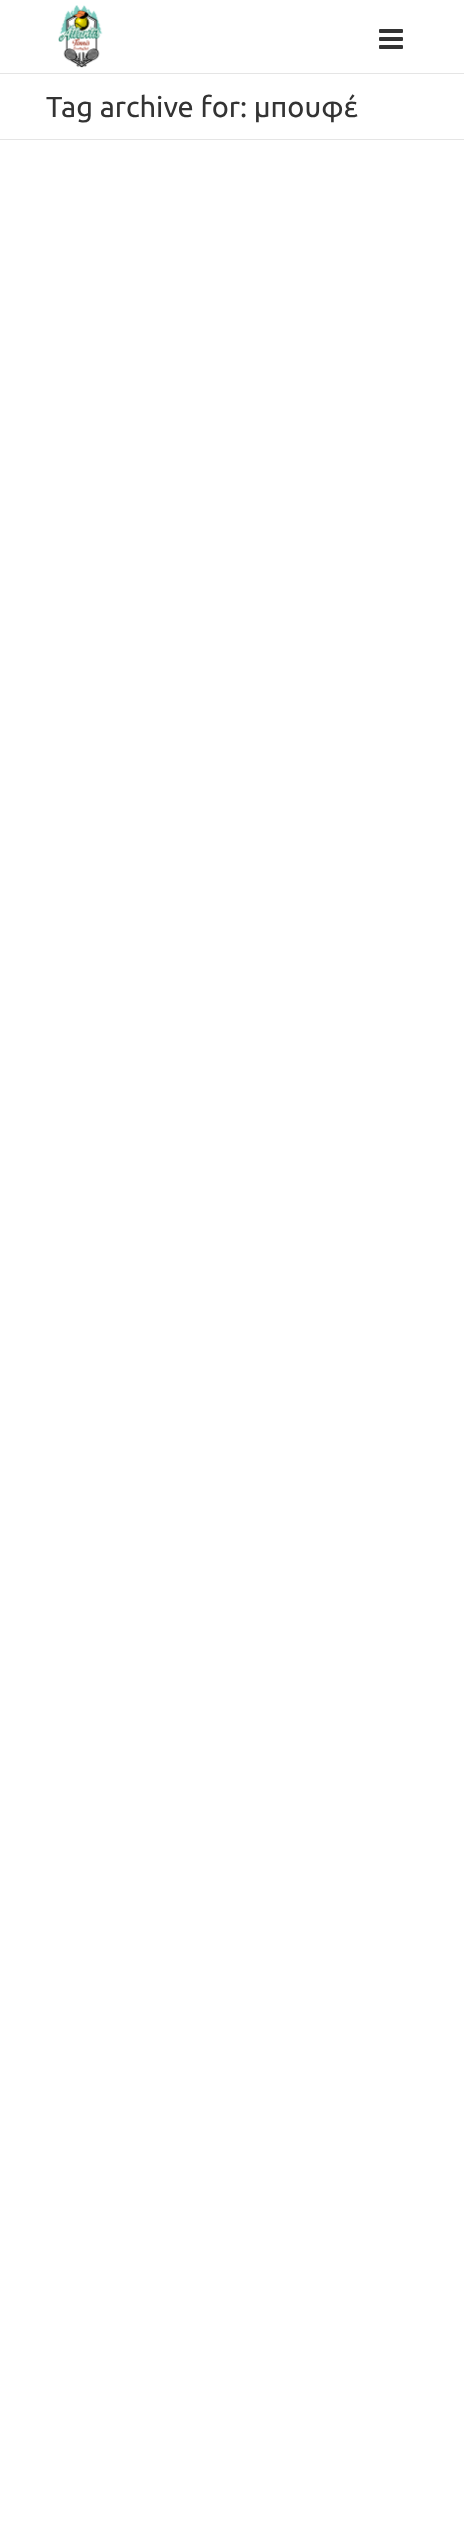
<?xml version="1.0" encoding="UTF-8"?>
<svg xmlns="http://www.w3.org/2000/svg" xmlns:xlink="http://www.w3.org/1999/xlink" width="464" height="2526">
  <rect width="100%" height="100%" fill="#ffffff" />
  <rect y="73" width="464" height="1" fill="#e5e5e5" />
  <image x="58" y="5" width="45" height="63" xlink:href="image1.png" />
  <image x="379" y="29" width="24" height="20" xlink:href="image2.png" />
  <rect y="139" width="464" height="1" fill="#e5e5e5" />
  <text x="46" y="117" style="font-family: Ubuntu; font-size: 29px; fill: #333333">Tag archive for: μπουφέ</text>
</svg>
